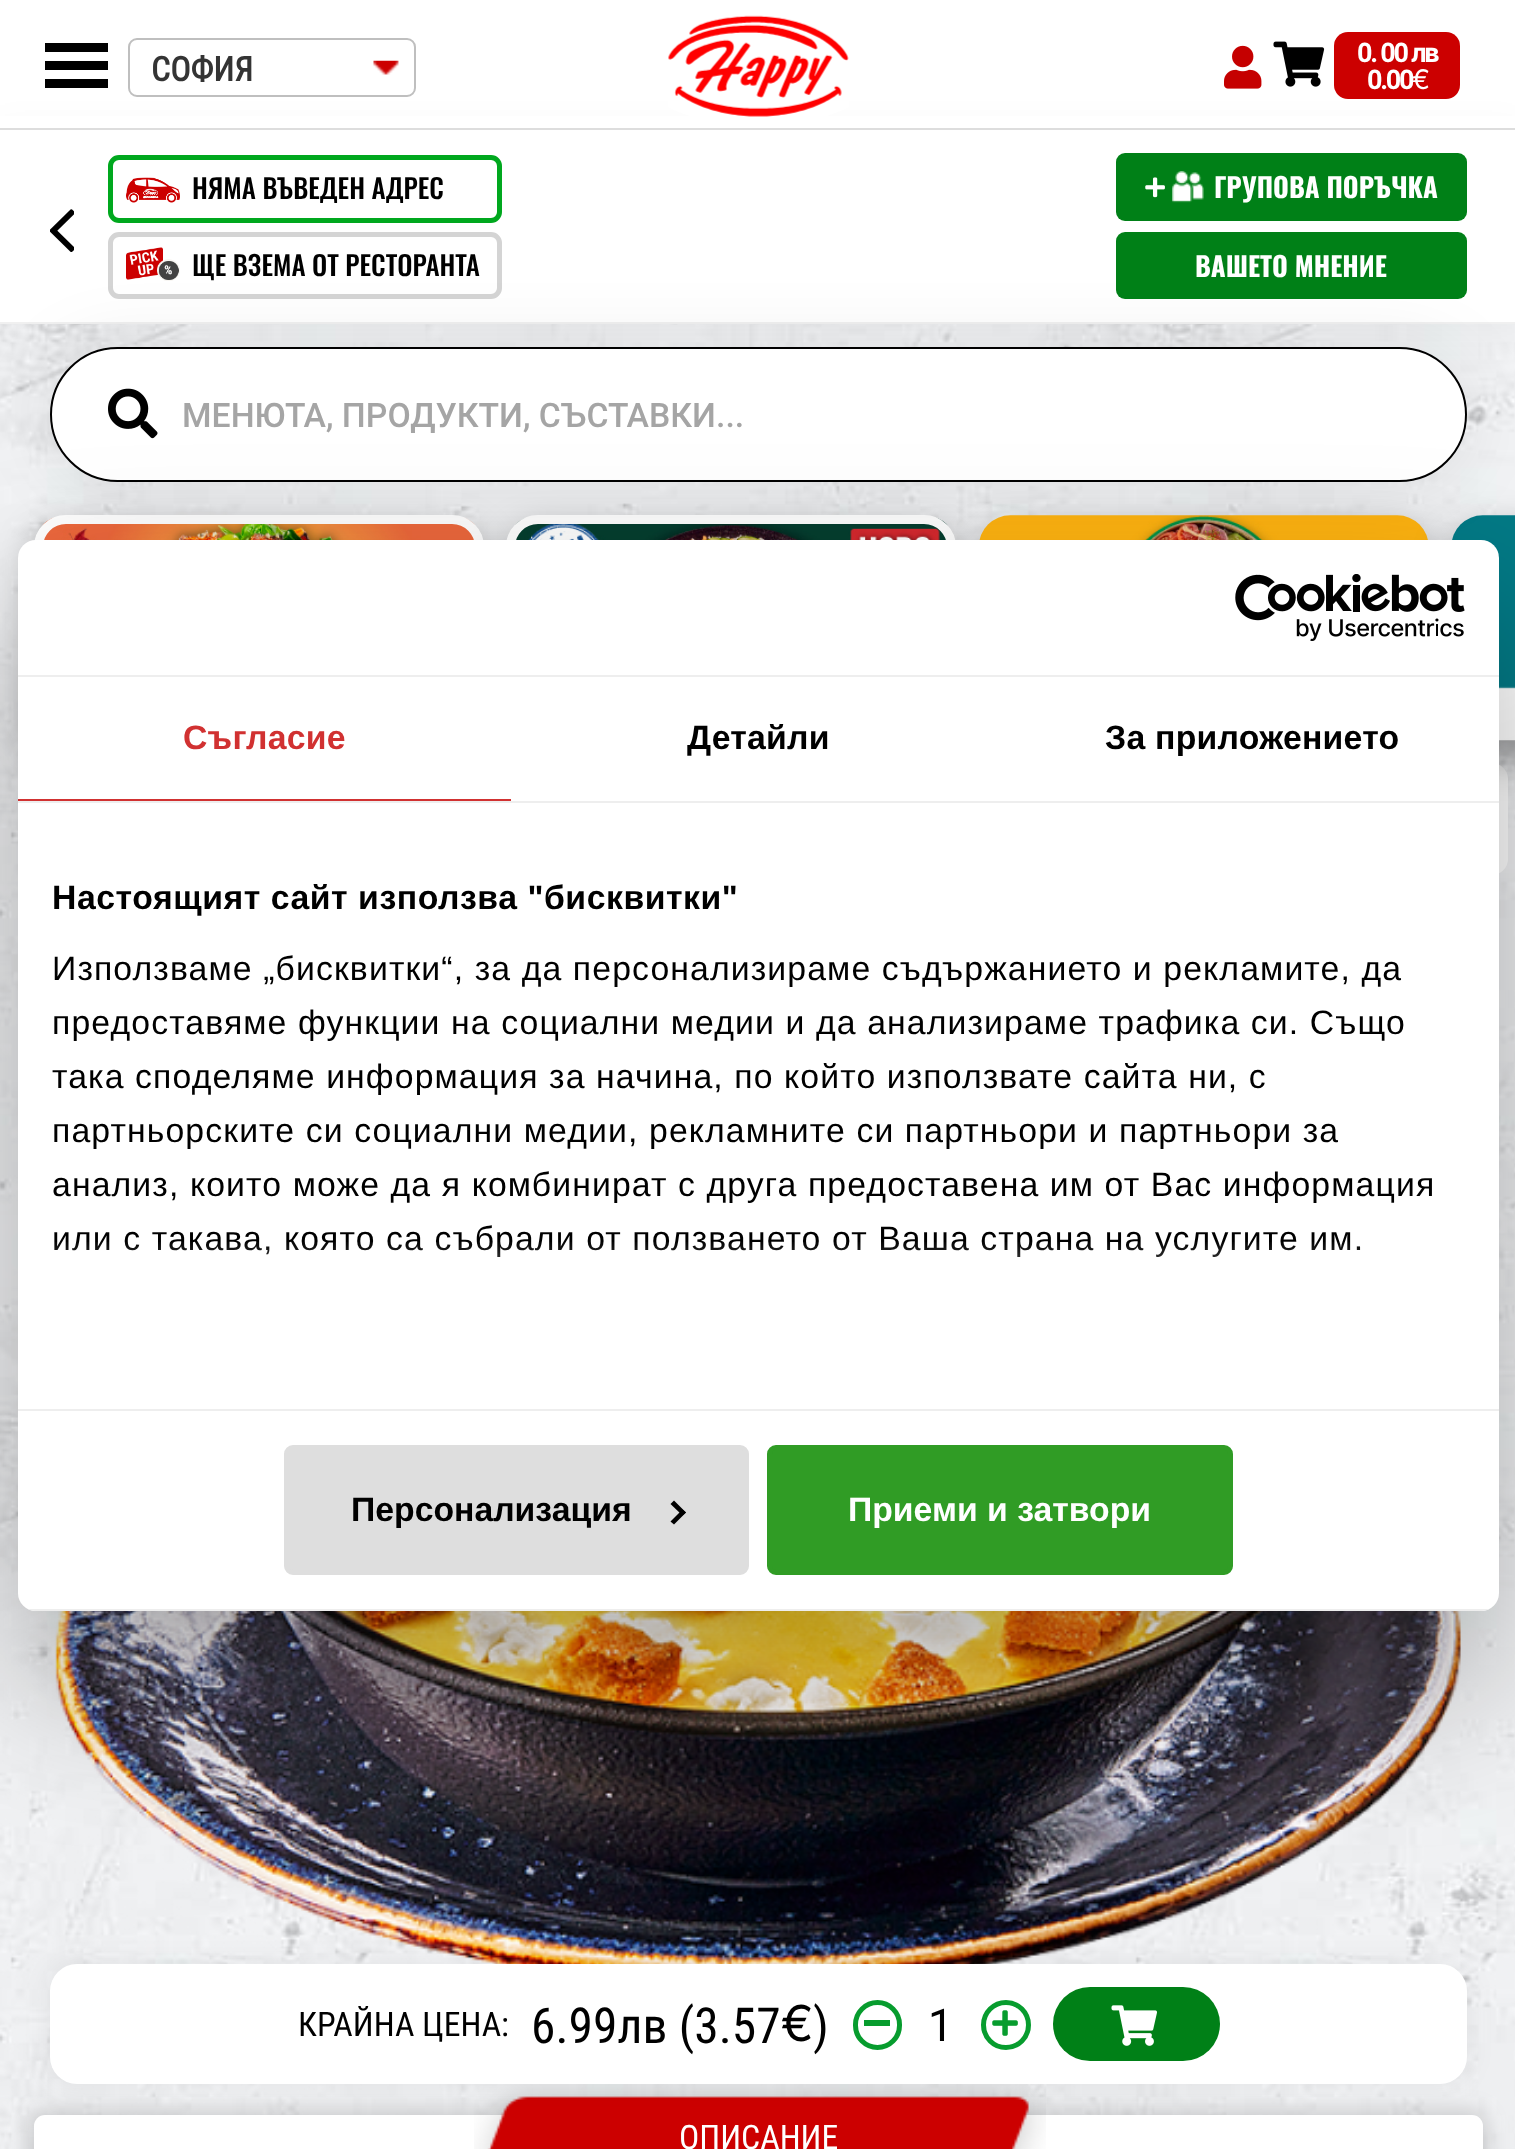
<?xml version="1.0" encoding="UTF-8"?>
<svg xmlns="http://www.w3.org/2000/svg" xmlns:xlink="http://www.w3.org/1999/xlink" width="1515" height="2149">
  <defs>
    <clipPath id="clip1"><rect x="18" y="540" width="1481" height="1071" rx="18" /></clipPath>
    <clipPath id="clip2"><rect x="191" y="176" width="293" height="27" /></clipPath>
    <linearGradient id="g1" gradientUnits="userSpaceOnUse" x1="744" y1="1409" x2="744" y2="1240"><stop offset="0" stop-color="#ffffff" /><stop offset="0.5" stop-color="#ffffff" stop-opacity="0.8" /><stop offset="1" stop-color="#ffffff" stop-opacity="0" /></linearGradient>
  </defs>
  <rect width="100%" height="100%" fill="#ffffff" />
  <image x="0" y="324" width="1515" height="1825" xlink:href="image1.png" />
  <rect x="45" y="43" width="63" height="9" fill="#000000" />
  <rect x="45" y="61" width="63" height="9" fill="#000000" />
  <rect x="-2" y="128" width="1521" height="201" fill="#000000" fill-opacity="0.04" filter="blur(17.5px)" />
  <rect x="45" y="79" width="63" height="9" fill="#000000" />
  <rect x="129" y="39" width="286" height="57" rx="8" fill="none" stroke="#bfbfbf" stroke-width="2" />
  <image x="373" y="60" width="26" height="15" xlink:href="image2.png" />
  <rect y="116" width="1515" height="206" fill="#ffffff" />
  <image x="668" y="15" width="181" height="102" xlink:href="image3.png" />
  <image x="1224" y="45" width="38" height="44" xlink:href="image4.png" />
  <image x="1273" y="41" width="52" height="46" xlink:href="image5.png" />
  <rect x="1334" y="32" width="126" height="67" rx="14" fill="#cc0000" />
  <rect y="128" width="1515" height="2" fill="#dddddd" />
  <rect y="322" width="1515" height="2" fill="#f0f0f0" />
  <image x="50" y="209" width="24" height="43" xlink:href="image6.png" />
  <rect x="110.5" y="157.5" width="389" height="63" rx="8.5" fill="none" stroke="#00a81e" stroke-width="5" />
  <image x="126" y="177" width="54" height="26" xlink:href="image7.png" />
  <rect x="110.5" y="234.5" width="389" height="62" rx="8.5" fill="none" stroke="#d4d4d4" stroke-width="5" />
  <image x="126" y="247" width="54" height="34" xlink:href="image8.png" />
  <rect x="1116" y="153" width="351" height="68" rx="9" fill="#008017" />
  <image x="1145" y="177" width="20" height="21" xlink:href="image9.png" />
  <image x="1172" y="171" width="32" height="32" xlink:href="image10.png" />
  <rect x="34" y="533" width="450" height="225" rx="32" fill="#000000" fill-opacity="0.36" filter="blur(19px)" />
  <image x="42" y="517" width="433" height="23" xlink:href="image12.png" />
  <rect x="38.5" y="519.5" width="441" height="216" rx="27.5" fill="none" stroke="#ffffff" stroke-width="9" />
  <rect x="506" y="533" width="450" height="225" rx="32" fill="#000000" fill-opacity="0.36" filter="blur(19px)" />
  <image x="515" y="517" width="433" height="23" xlink:href="image13.png" />
  <rect x="510.5" y="519.5" width="441" height="216" rx="27.5" fill="none" stroke="#ffffff" stroke-width="9" />
  <rect x="1274" y="763" width="234" height="112" rx="16" fill="#ffffff" />
  <rect x="979" y="533" width="450" height="225" rx="32" fill="#000000" fill-opacity="0.36" filter="blur(19px)" />
  <image x="979" y="515" width="449" height="25" xlink:href="image14.png" />
  <rect x="1451" y="533" width="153" height="225" rx="32" fill="#000000" fill-opacity="0.36" filter="blur(19px)" />
  <image x="1452" y="515" width="63" height="226" xlink:href="image15.png" />
  <rect x="45" y="344" width="1427" height="144" rx="72" fill="#000000" fill-opacity="0.08" filter="blur(33.5px)" />
  <rect x="1116" y="232" width="351" height="67" rx="9" fill="#008017" />
  <rect x="51" y="348" width="1415" height="133" rx="66.5" fill="#ffffff" stroke="#000000" stroke-width="2" />
  <image x="108" y="388" width="50" height="51" xlink:href="image11.png" />
  <image x="55" y="1611" width="1406" height="353" xlink:href="image16.png" />
  <rect x="29" y="2111" width="1458" height="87" rx="16" fill="#000000" fill-opacity="0.17" filter="blur(11px)" />
  <rect x="34" y="2115" width="1449" height="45" rx="11" fill="#ffffff" />
  <image x="474" y="2084" width="572" height="65" xlink:href="image19.png" />
  <rect x="45" y="1960" width="1427" height="128" rx="32" fill="#000000" fill-opacity="0.05" filter="blur(11px)" />
  <rect x="50" y="1964" width="1417" height="120" rx="27" fill="#ffffff" />
  <rect x="855.5" y="2002.5" width="44" height="45" rx="22" fill="none" stroke="#079c2e" stroke-width="5" />
  <rect x="864" y="2020" width="26" height="6" fill="#079c2e" />
  <circle cx="1006" cy="2025" r="22.5" fill="none" stroke="#079c2e" stroke-width="5" />
  <image x="992" y="2010" width="26" height="26" xlink:href="image17.png" />
  <rect x="1053" y="1987" width="167" height="74" rx="37" fill="#008017" />
  <image x="1111" y="2005" width="46" height="41" xlink:href="image18.png" />
  <rect x="18" y="612" width="1481" height="1071" rx="18" fill="#000000" fill-opacity="0.3" filter="blur(76.5px)" />
  <rect x="18" y="540" width="1481" height="1071" rx="18" fill="#ffffff" />
  <rect x="18" y="675" width="1481" height="2" fill="#eeeeee" />
  <image x="1235" y="574" width="230" height="67" xlink:href="image20.png" />
  <rect x="18" y="801" width="1481" height="2" fill="#eeeeee" />
  <rect x="18" y="799" width="493" height="2" fill="#d13131" />
  <rect x="18" y="1409" width="1481" height="2" fill="#eeeeee" />
  <g clip-path="url(#clip1)">
    <rect x="28" y="1609" width="1461" height="2" fill="#eeeeee" />
  </g>
  <rect x="286.5" y="1447.5" width="460" height="125" rx="6.5" fill="#dedede" stroke="#dedede" stroke-width="5" />
  <path d="M 674 1500.5 l 12 12 l -3.5 3 l -12 -11.5 z" fill="#000000" />
  <path d="M 682.5 1509.5 l 3.5 3 l -12 12 l -3.5 -3 z" fill="#000000" />
  <rect x="769.5" y="1447.5" width="461" height="125" rx="6.5" fill="#309c25" stroke="#309c25" stroke-width="5" />
  <text x="151" y="81" style="font-family: Roboto Condensed; font-size: 33.75px; font-weight: bold; fill: #343434">СОФИЯ</text>
  <text x="1357" y="62" style="font-family: Roboto; font-size: 27px; font-weight: bold; letter-spacing: -2.25px; fill: #ffffff">0. 00 лв</text>
  <text x="1367" y="89" style="font-family: Roboto; font-size: 27px; font-weight: bold; letter-spacing: -2.25px; fill: #ffffff">0.00</text>
  <text x="1412" y="89" style="font-family: 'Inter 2'; font-size: 27px; letter-spacing: -2.25px; fill: #ffffff">€</text>
  <g clip-path="url(#clip2)">
    <text x="192" y="199" style="font-family: Oswald; font-size: 27px; font-weight: 500; fill: #000000">НЯМА ВЪВЕДЕН АДРЕС</text>
  </g>
  <text x="192" y="276" style="font-family: Oswald; font-size: 27px; font-weight: 500; fill: #000000">ЩЕ ВЗЕМА ОТ РЕСТОРАНТА</text>
  <text x="1214" y="198" style="font-family: Oswald; font-size: 27px; font-weight: bold; fill: #ffffff">ГРУПОВА ПОРЪЧКА</text>
  <text x="1195" y="277" style="font-family: Oswald; font-size: 27px; font-weight: bold; fill: #ffffff">ВАШЕТО МНЕНИЕ</text>
  <text x="182" y="427" style="font-family: Roboto; font-size: 33.75px; font-weight: 500; fill: #a5a5a5">МЕНЮТА, ПРОДУКТИ, СЪСТАВКИ...</text>
  <text x="298" y="2036" style="font-family: Roboto Condensed; font-size: 33.75px; fill: #000000">КРАЙНА ЦЕНА:</text>
  <text x="531" y="2043" style="font-family: Roboto Condensed; font-size: 49.5px; fill: #000000">6.99лв (3.57</text>
  <text x="781" y="2041" style="font-family: Inter; font-size: 49.5px; fill: #000000">€</text>
  <text x="813" y="2043" style="font-family: Roboto Condensed; font-size: 49.5px; fill: #000000">)</text>
  <text x="928" y="2041" style="font-family: Roboto; font-size: 45px; fill: #000000">1</text>
  <text x="679" y="2149" style="font-family: Roboto Condensed; font-size: 33.75px; fill: #ffffff">ОПИСАНИЕ</text>
  <text x="183" y="749" style="font-family: Liberation Sans; font-size: 33.75px; font-weight: bold; letter-spacing: 0.25px; fill: #d13131">Съгласие</text>
  <text x="687" y="749" style="font-family: Liberation Sans; font-size: 33.75px; font-weight: bold; letter-spacing: 0.25px; fill: #000000">Детайли</text>
  <text x="1105" y="749" style="font-family: Liberation Sans; font-size: 33.75px; font-weight: bold; letter-spacing: 0.25px; fill: #000000">За приложението</text>
  <text x="52" y="909" style="font-family: Liberation Sans; font-size: 33.75px; font-weight: bold; letter-spacing: 0.55px; fill: #000000">Настоящият сайт използва "бисквитки"</text>
  <text x="52" y="980" style="font-family: Liberation Sans; font-size: 33.75px; letter-spacing: 1.12px; fill: #000000">Използваме „бисквитки“, за да персонализираме съдържанието и рекламите, да</text>
  <text x="52" y="1034" style="font-family: Liberation Sans; font-size: 33.75px; letter-spacing: 1.12px; fill: #000000">предоставяме функции на социални медии и да анализираме трафика си. Също</text>
  <text x="52" y="1088" style="font-family: Liberation Sans; font-size: 33.75px; letter-spacing: 1.12px; fill: #000000">така споделяме информация за начина, по който използвате сайта ни, с</text>
  <text x="52" y="1142" style="font-family: Liberation Sans; font-size: 33.75px; letter-spacing: 1.12px; fill: #000000">партньорските си социални медии, рекламните си партньори и партньори за</text>
  <text x="52" y="1196" style="font-family: Liberation Sans; font-size: 33.75px; letter-spacing: 1.12px; fill: #000000">анализ, които може да я комбинират с друга предоставена им от Вас информация</text>
  <text x="52" y="1250" style="font-family: Liberation Sans; font-size: 33.75px; letter-spacing: 1.12px; fill: #000000">или с такава, която са събрали от ползването от Ваша страна на услугите им.</text>
  <rect x="54" y="1242" width="1306" height="15" fill="url(#g1)" />
  <text x="351" y="1521" style="font-family: Liberation Sans; font-size: 33.75px; font-weight: bold; fill: #000000">Персонализация</text>
  <text x="848" y="1521" style="font-family: Liberation Sans; font-size: 33.75px; font-weight: bold; fill: #ffffff">Приеми и затвори</text>
</svg>
